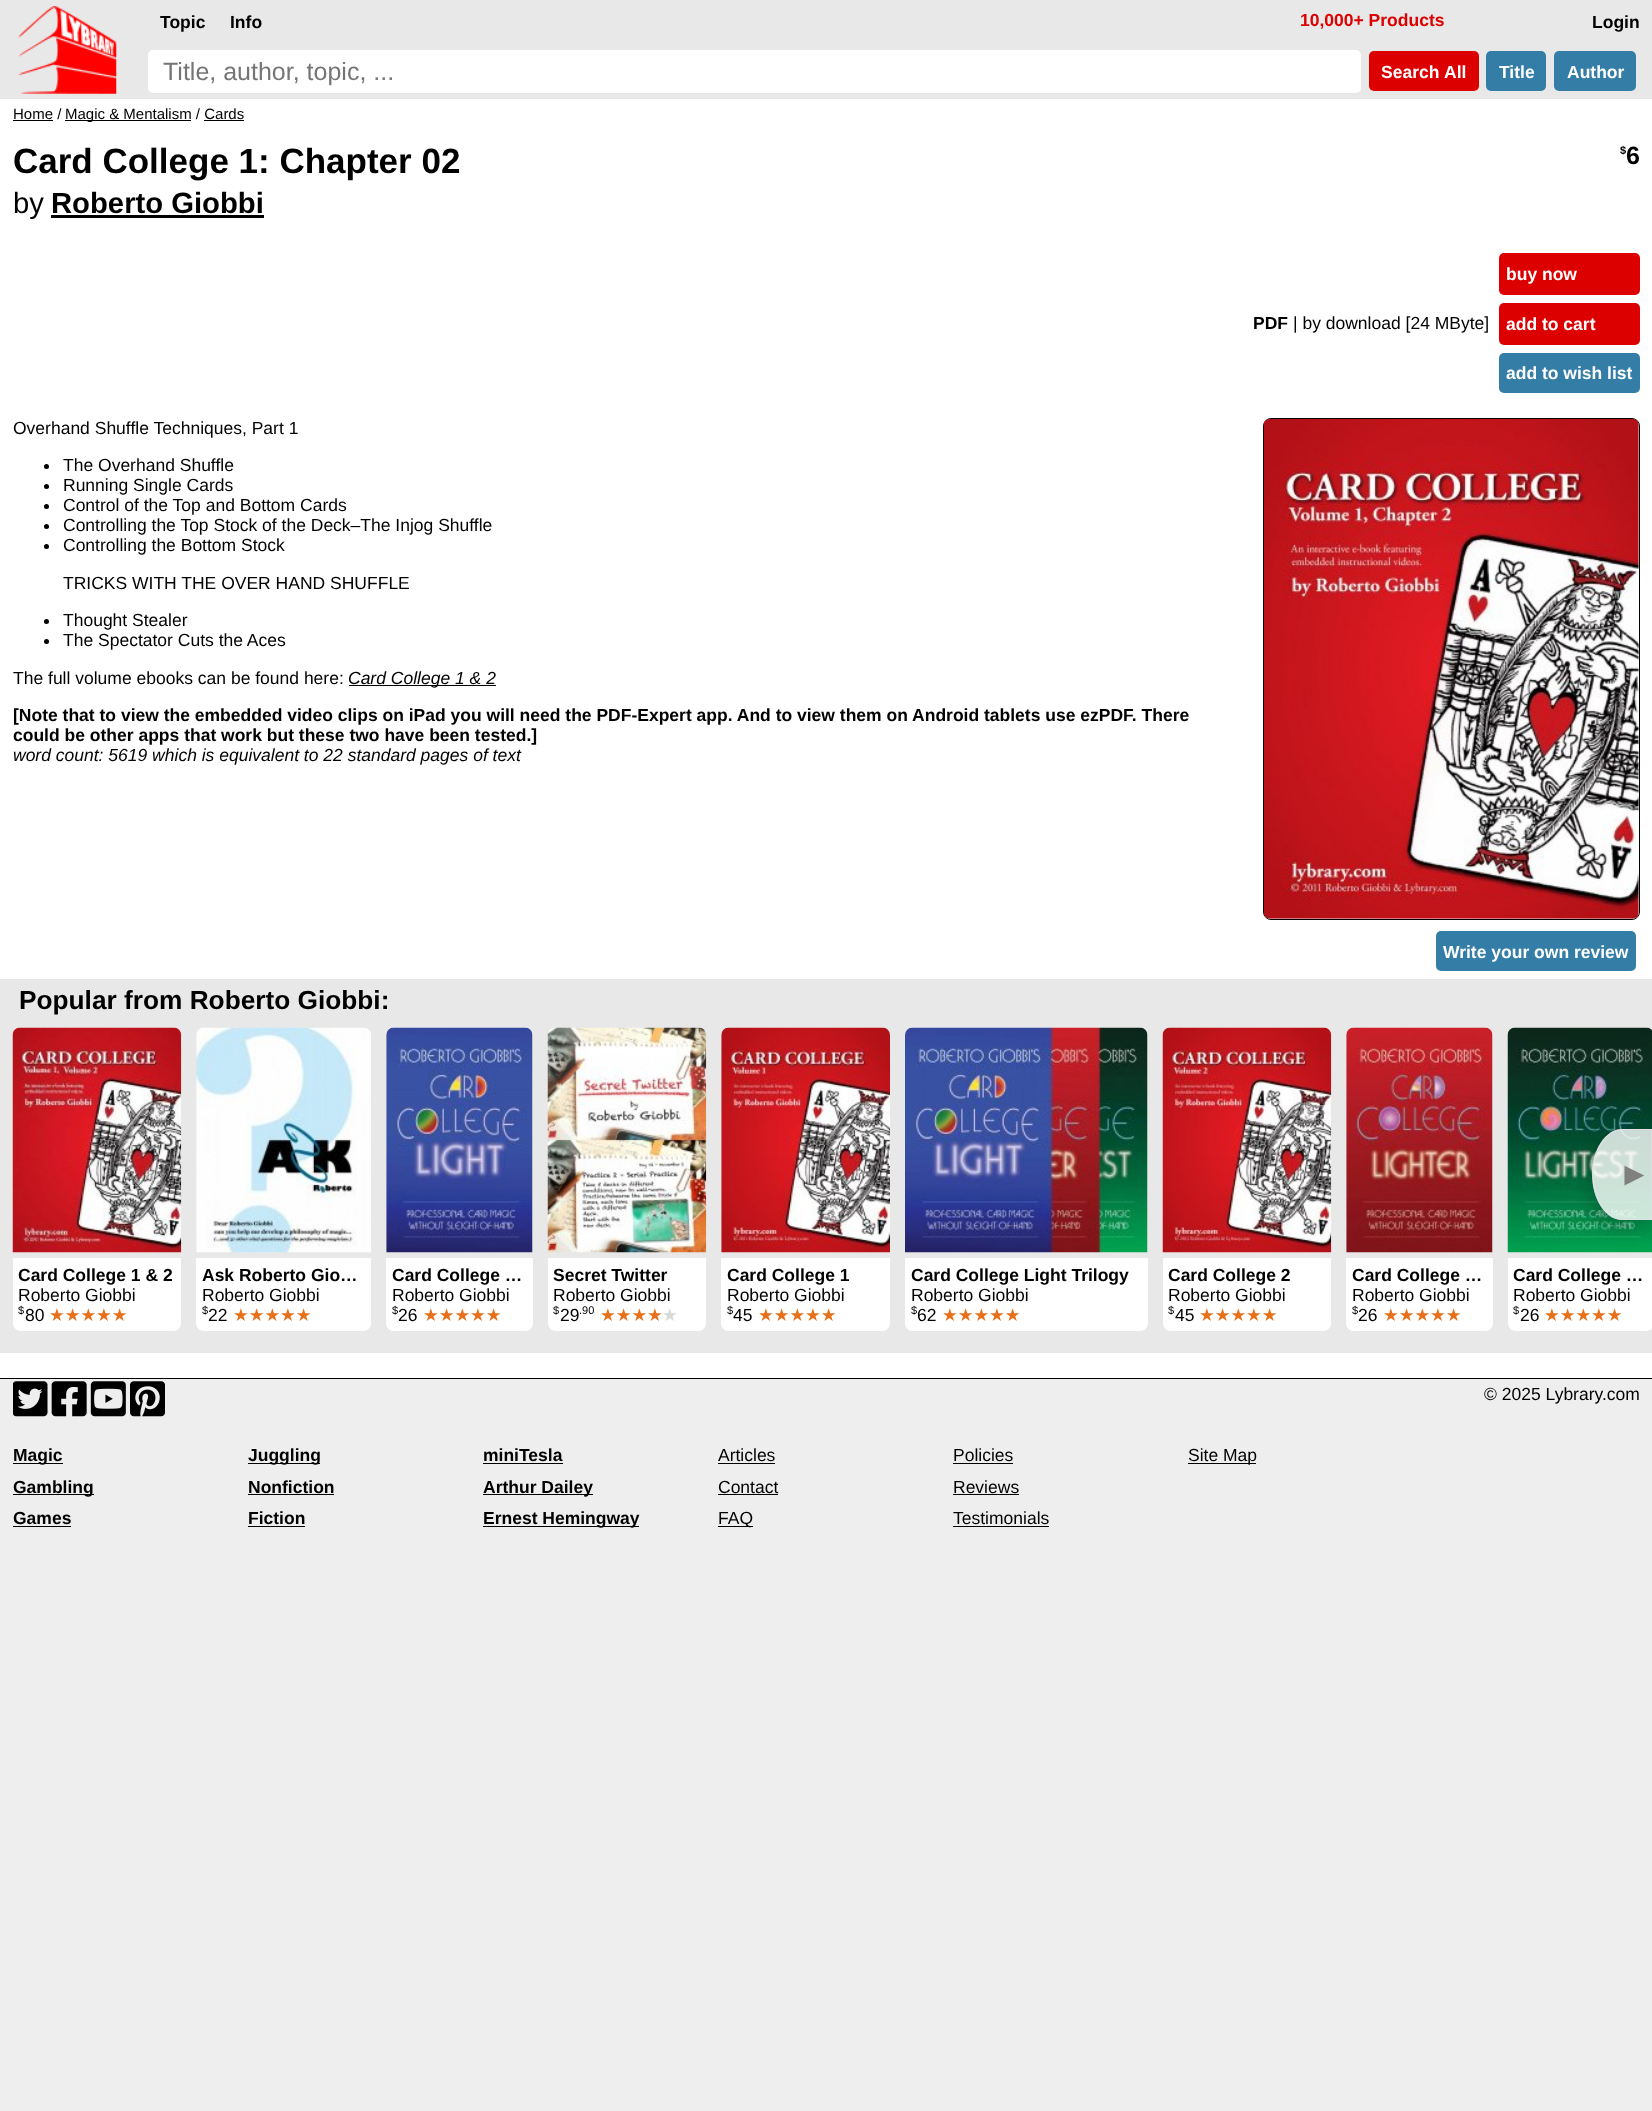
<?xml version="1.0" encoding="UTF-8"?>
<svg xmlns="http://www.w3.org/2000/svg" xmlns:xlink="http://www.w3.org/1999/xlink" width="1652" height="2111">
  <defs>
    <clipPath id="clip1"><path d="M 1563 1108 h 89 v 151 h -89 z m 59.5 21 h 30 v 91 h -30 c -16.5 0 -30 -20.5 -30 -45.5 c 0 -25.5 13.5 -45.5 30 -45.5 z" clip-rule="evenodd" /></clipPath>
  </defs>
  <rect width="100%" height="100%" fill="#eeeeee" />
  <rect width="1652" height="99" fill="#e8e8e8" />
  <image x="18" y="6" width="99" height="88" xlink:href="image1.png" />
  <rect x="148" y="50" width="1213" height="43" rx="5" fill="#ffffff" />
  <rect x="1369" y="51" width="110" height="40" rx="5" fill="#dd0000" />
  <rect x="1486" y="51" width="60" height="40" rx="5" fill="#337da6" />
  <rect x="1554" y="51" width="82" height="40" rx="5" fill="#337da6" />
  <rect y="99" width="1652" height="1279" fill="#ffffff" />
  <rect x="13" y="120" width="40" height="1" fill="#000000" />
  <rect x="65" y="120" width="126" height="1" fill="#000000" />
  <rect x="204" y="120" width="40" height="1" fill="#000000" />
  <rect x="51" y="215" width="213" height="3" fill="#000000" />
  <rect x="1499" y="253" width="141" height="42" rx="5" fill="#dd0000" />
  <rect x="1499" y="303" width="141" height="42" rx="5" fill="#dd0000" />
  <rect x="1499" y="353" width="141" height="40" rx="5" fill="#337da6" />
  <circle cx="46.5" cy="466.5" r="2.5" fill="#000000" />
  <circle cx="46.5" cy="486.5" r="2.5" fill="#000000" />
  <circle cx="46.5" cy="506.5" r="2.5" fill="#000000" />
  <circle cx="46.5" cy="526.5" r="2.5" fill="#000000" />
  <circle cx="46.5" cy="546.5" r="2.5" fill="#000000" />
  <circle cx="46.5" cy="621.5" r="2.5" fill="#000000" />
  <circle cx="46.5" cy="641.5" r="2.5" fill="#000000" />
  <rect x="349" y="685" width="147" height="1" fill="#000000" />
  <rect x="1263.5" y="418.5" width="376" height="501" rx="7.5" fill="none" stroke="#000000" />
  <image x="1263" y="418" width="376" height="501" xlink:href="image2.png" />
  <rect x="1436" y="931" width="200" height="40" rx="5" fill="#337da6" />
  <rect y="979" width="1652" height="374" fill="#e8e8e8" />
  <image x="1507" y="1027" width="145" height="226" xlink:href="image11.png" />
  <path d="M 1508 1258 h 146 v 65 c 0 4.5 -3.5 8 -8 8 h -130 c -4.5 0 -8 -3.5 -8 -8 z" fill="#ffffff" />
  <g clip-path="url(#clip1)">
    <rect x="1593" y="1138" width="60" height="91" rx="30" fill="#000000" fill-opacity="0.2" filter="blur(9.5px)" />
  </g>
  <path d="M 1622 1129 h 30 v 91 h -30 c -16 0 -30 -20 -30 -46 c 0 -25 14 -45 30 -45 z" fill="#ffffff" fill-opacity="0.8" />
  <path d="M 1622.5 1129.5 h 29.5 v 90 h -29.5 c -16 0 -29.5 -20.5 -29.5 -45 c 0 -25 13.5 -45 29.5 -45 z" fill="none" stroke="#dfe1e5" stroke-width="1.2" />
  <image x="12" y="1027" width="170" height="226" xlink:href="image3.png" />
  <path d="M 13 1258 h 168 v 65 c 0 4.5 -3.5 8 -8 8 h -152 c -4.5 0 -8 -3.5 -8 -8 z" fill="#ffffff" />
  <image x="196" y="1027" width="175" height="226" xlink:href="image4.png" />
  <path d="M 196 1258 h 175 v 65 c 0 4.5 -3.5 8 -8 8 h -159 c -4.5 0 -8 -3.5 -8 -8 z" fill="#ffffff" />
  <image x="386" y="1027" width="147" height="226" xlink:href="image5.png" />
  <path d="M 386 1258 h 147 v 65 c 0 4.5 -3.5 8 -8 8 h -131 c -4.5 0 -8 -3.5 -8 -8 z" fill="#ffffff" />
  <image x="547" y="1027" width="160" height="226" xlink:href="image6.png" />
  <path d="M 548 1258 h 158 v 65 c 0 4.5 -3.5 8 -8 8 h -142 c -4.5 0 -8 -3.5 -8 -8 z" fill="#ffffff" />
  <image x="721" y="1027" width="169" height="226" xlink:href="image7.png" />
  <path d="M 721 1258 h 169 v 65 c 0 4.5 -3.5 8 -8 8 h -153 c -4.5 0 -8 -3.5 -8 -8 z" fill="#ffffff" />
  <image x="905" y="1027" width="243" height="226" xlink:href="image8.png" />
  <path d="M 905 1258 h 243 v 65 c 0 4.5 -3.5 8 -8 8 h -227 c -4.5 0 -8 -3.5 -8 -8 z" fill="#ffffff" />
  <image x="1162" y="1027" width="170" height="226" xlink:href="image9.png" />
  <path d="M 1163 1258 h 168 v 65 c 0 4.5 -3.5 8 -8 8 h -152 c -4.5 0 -8 -3.5 -8 -8 z" fill="#ffffff" />
  <image x="1346" y="1027" width="147" height="226" xlink:href="image10.png" />
  <path d="M 1346 1258 h 147 v 65 c 0 4.5 -3.5 8 -8 8 h -131 c -4.5 0 -8 -3.5 -8 -8 z" fill="#ffffff" />
  <rect y="1378" width="1652" height="1" fill="#000000" />
  <image x="13" y="1381" width="152" height="36" xlink:href="image12.png" />
  <rect x="13" y="1463" width="50" height="1" fill="#000000" />
  <rect x="248" y="1463" width="72" height="1" fill="#000000" />
  <rect x="483" y="1463" width="80" height="1" fill="#000000" />
  <rect x="718" y="1463" width="57" height="1" fill="#000000" />
  <rect x="953" y="1463" width="60" height="1" fill="#000000" />
  <rect x="1188" y="1463" width="68" height="1" fill="#000000" />
  <rect x="13" y="1494" width="81" height="1" fill="#000000" />
  <rect x="248" y="1494" width="86" height="1" fill="#000000" />
  <rect x="483" y="1494" width="110" height="1" fill="#000000" />
  <rect x="718" y="1494" width="60" height="1" fill="#000000" />
  <rect x="953" y="1494" width="66" height="1" fill="#000000" />
  <rect x="13" y="1526" width="58" height="1" fill="#000000" />
  <rect x="248" y="1526" width="57" height="1" fill="#000000" />
  <rect x="483" y="1526" width="156" height="1" fill="#000000" />
  <rect x="718" y="1526" width="35" height="1" fill="#000000" />
  <rect x="953" y="1526" width="96" height="1" fill="#000000" />
  <text x="160" y="28" style="font-family: Liberation Sans; font-size: 17.5px; font-weight: bold; fill: #000000">Topic</text>
  <text x="230" y="28" style="font-family: Liberation Sans; font-size: 17.5px; font-weight: bold; fill: #000000">Info</text>
  <text x="1300" y="26" style="font-family: Liberation Sans; font-size: 17.5px; font-weight: bold; fill: #dd0000">10,000+ Products</text>
  <text x="1592" y="28" style="font-family: Liberation Sans; font-size: 17.5px; font-weight: bold; fill: #000000">Login</text>
  <text x="163" y="80" style="font-family: Liberation Sans; font-size: 25px; fill: #757575">Title, author, topic, ...</text>
  <text x="1381" y="78" style="font-family: Liberation Sans; font-size: 17.5px; font-weight: bold; fill: #ffffff">Search</text>
  <text x="1444" y="78" style="font-family: Liberation Sans; font-size: 17.5px; font-weight: bold; fill: #ffffff">All</text>
  <text x="1499" y="78" style="font-family: Liberation Sans; font-size: 17.5px; font-weight: bold; fill: #ffffff">Title</text>
  <text x="1567" y="78" style="font-family: Liberation Sans; font-size: 17.5px; font-weight: bold; fill: #ffffff">Author</text>
  <text x="13" y="119" style="font-family: Liberation Sans; font-size: 15px; fill: #000000">Home /</text>
  <text x="65" y="119" style="font-family: Liberation Sans; font-size: 15px; fill: #000000">Magic &amp; Mentalism / Cards</text>
  <text x="13" y="173" style="font-family: Liberation Sans; font-size: 35px; font-weight: bold; fill: #000000">Card College 1: Chapter 02</text>
  <text x="13" y="213" style="font-family: Liberation Sans; font-size: 29.25px; fill: #000000">by</text>
  <text x="51" y="213" style="font-family: Liberation Sans; font-size: 29.25px; font-weight: bold; fill: #000000">Roberto Giobbi</text>
  <text x="1620" y="154" style="font-family: Liberation Sans; font-size: 11px; font-weight: bold; fill: #000000">$</text>
  <text x="1626" y="164" style="font-family: Liberation Sans; font-size: 25px; font-weight: bold; fill: #000000">6</text>
  <text x="1253" y="329" style="font-family: Liberation Sans; font-size: 17.5px; font-weight: bold; fill: #000000">PDF</text>
  <text x="1293" y="329" style="font-family: Liberation Sans; font-size: 17.5px; fill: #000000">| by download [24 MByte]</text>
  <text x="1506" y="280" style="font-family: Liberation Sans; font-size: 17.5px; font-weight: bold; fill: #ffffff">buy now</text>
  <text x="1506" y="330" style="font-family: Liberation Sans; font-size: 17.5px; font-weight: bold; fill: #ffffff">add to cart</text>
  <text x="1506" y="379" style="font-family: Liberation Sans; font-size: 17.5px; font-weight: bold; fill: #ffffff">add to wish list</text>
  <text x="13" y="434" style="font-family: Liberation Sans; font-size: 17.5px; fill: #000000">Overhand Shuffle Techniques, Part 1</text>
  <text x="63" y="471" style="font-family: Liberation Sans; font-size: 17.5px; fill: #000000">The Overhand Shuffle</text>
  <text x="63" y="491" style="font-family: Liberation Sans; font-size: 17.5px; fill: #000000">Running Single Cards</text>
  <text x="63" y="511" style="font-family: Liberation Sans; font-size: 17.5px; fill: #000000">Control of the Top and Bottom Cards</text>
  <text x="63" y="531" style="font-family: Liberation Sans; font-size: 17.5px; fill: #000000">Controlling the Top Stock of the Deck–The Injog Shuffle</text>
  <text x="63" y="551" style="font-family: Liberation Sans; font-size: 17.5px; fill: #000000">Controlling the Bottom Stock</text>
  <text x="63" y="589" style="font-family: Liberation Sans; font-size: 17.5px; fill: #000000">TRICKS WITH THE OVER HAND SHUFFLE</text>
  <text x="63" y="626" style="font-family: Liberation Sans; font-size: 17.5px; fill: #000000">Thought Stealer</text>
  <text x="63" y="646" style="font-family: Liberation Sans; font-size: 17.5px; fill: #000000">The Spectator Cuts the Aces</text>
  <text x="13" y="684" style="font-family: Liberation Sans; font-size: 17.5px; fill: #000000">The full volume ebooks can be found here:</text>
  <text x="348" y="684" style="font-family: Liberation Sans; font-size: 17.5px; font-style: italic; fill: #000000">Card College 1 &amp; 2</text>
  <text x="13" y="721" style="font-family: Liberation Sans; font-size: 17.5px; font-weight: bold; fill: #000000">[Note that to view the embedded video clips on iPad you will need the PDF-Expert app. And to view them on Android tablets use ezPDF. There</text>
  <text x="13" y="741" style="font-family: Liberation Sans; font-size: 17.5px; font-weight: bold; fill: #000000">could be other apps that work but these two have been tested.]</text>
  <text x="13" y="761" style="font-family: Liberation Sans; font-size: 17.5px; font-style: italic; fill: #000000">word count: 5619 which is equivalent to 22 standard pages of text</text>
  <text x="1443" y="958" style="font-family: Liberation Sans; font-size: 17.5px; font-weight: bold; fill: #ffffff">Write your own review</text>
  <text x="19" y="1009" style="font-family: Liberation Sans; font-size: 26.25px; font-weight: bold; fill: #000000">Popular from Roberto Giobbi:</text>
  <text x="1618" y="1185" style="font-family: Liberation Sans; font-size: 33px; fill: #808080">►</text>
  <text x="18" y="1281" style="font-family: Liberation Sans; font-size: 17.5px; font-weight: bold; fill: #000000">Card College 1 &amp; 2</text>
  <text x="18" y="1301" style="font-family: Liberation Sans; font-size: 17.5px; fill: #000000">Roberto Giobbi</text>
  <text x="18" y="1314" style="font-family: Liberation Sans; font-size: 11px; fill: #000000">$</text>
  <text x="25" y="1321" style="font-family: Liberation Sans; font-size: 17.5px; fill: #000000">80</text>
  <text x="49" y="1321" style="font-family: DejaVu Sans; font-size: 17.5px; fill: #e7711b">★★★★★</text>
  <text x="202" y="1281" style="font-family: Liberation Sans; font-size: 17.5px; font-weight: bold; fill: #000000">Ask Roberto Gio…</text>
  <text x="202" y="1301" style="font-family: Liberation Sans; font-size: 17.5px; fill: #000000">Roberto Giobbi</text>
  <text x="202" y="1314" style="font-family: Liberation Sans; font-size: 11px; fill: #000000">$</text>
  <text x="208" y="1321" style="font-family: Liberation Sans; font-size: 17.5px; fill: #000000">22</text>
  <text x="233" y="1321" style="font-family: DejaVu Sans; font-size: 17.5px; fill: #e7711b">★★★★★</text>
  <text x="392" y="1281" style="font-family: Liberation Sans; font-size: 17.5px; font-weight: bold; fill: #000000">Card College …</text>
  <text x="392" y="1301" style="font-family: Liberation Sans; font-size: 17.5px; fill: #000000">Roberto Giobbi</text>
  <text x="392" y="1314" style="font-family: Liberation Sans; font-size: 11px; fill: #000000">$</text>
  <text x="398" y="1321" style="font-family: Liberation Sans; font-size: 17.5px; fill: #000000">26</text>
  <text x="423" y="1321" style="font-family: DejaVu Sans; font-size: 17.5px; fill: #e7711b">★★★★★</text>
  <text x="553" y="1281" style="font-family: Liberation Sans; font-size: 17.5px; font-weight: bold; fill: #000000">Secret Twitter</text>
  <text x="553" y="1301" style="font-family: Liberation Sans; font-size: 17.5px; fill: #000000">Roberto Giobbi</text>
  <text x="553" y="1314" style="font-family: Liberation Sans; font-size: 11px; fill: #000000">$</text>
  <text x="560" y="1321" style="font-family: Liberation Sans; font-size: 17.5px; fill: #000000">29</text>
  <text x="579" y="1314" style="font-family: Liberation Sans; font-size: 11px; fill: #000000">.90</text>
  <text x="600" y="1321" style="font-family: DejaVu Sans; font-size: 17.5px; fill: #e7711b">★★★★</text>
  <text x="662" y="1321" style="font-family: DejaVu Sans; font-size: 17.5px; fill: #d8d8d8">★</text>
  <text x="727" y="1281" style="font-family: Liberation Sans; font-size: 17.5px; font-weight: bold; fill: #000000">Card College 1</text>
  <text x="727" y="1301" style="font-family: Liberation Sans; font-size: 17.5px; fill: #000000">Roberto Giobbi</text>
  <text x="727" y="1314" style="font-family: Liberation Sans; font-size: 11px; fill: #000000">$</text>
  <text x="733" y="1321" style="font-family: Liberation Sans; font-size: 17.5px; fill: #000000">45</text>
  <text x="758" y="1321" style="font-family: DejaVu Sans; font-size: 17.5px; fill: #e7711b">★★★★★</text>
  <text x="911" y="1281" style="font-family: Liberation Sans; font-size: 17.5px; font-weight: bold; fill: #000000">Card College Light Trilogy</text>
  <text x="911" y="1301" style="font-family: Liberation Sans; font-size: 17.5px; fill: #000000">Roberto Giobbi</text>
  <text x="911" y="1314" style="font-family: Liberation Sans; font-size: 11px; fill: #000000">$</text>
  <text x="917" y="1321" style="font-family: Liberation Sans; font-size: 17.5px; fill: #000000">62</text>
  <text x="942" y="1321" style="font-family: DejaVu Sans; font-size: 17.5px; fill: #e7711b">★★★★★</text>
  <text x="1168" y="1281" style="font-family: Liberation Sans; font-size: 17.5px; font-weight: bold; fill: #000000">Card College 2</text>
  <text x="1168" y="1301" style="font-family: Liberation Sans; font-size: 17.5px; fill: #000000">Roberto Giobbi</text>
  <text x="1168" y="1314" style="font-family: Liberation Sans; font-size: 11px; fill: #000000">$</text>
  <text x="1175" y="1321" style="font-family: Liberation Sans; font-size: 17.5px; fill: #000000">45</text>
  <text x="1199" y="1321" style="font-family: DejaVu Sans; font-size: 17.5px; fill: #e7711b">★★★★★</text>
  <text x="1352" y="1281" style="font-family: Liberation Sans; font-size: 17.5px; font-weight: bold; fill: #000000">Card College …</text>
  <text x="1352" y="1301" style="font-family: Liberation Sans; font-size: 17.5px; fill: #000000">Roberto Giobbi</text>
  <text x="1352" y="1314" style="font-family: Liberation Sans; font-size: 11px; fill: #000000">$</text>
  <text x="1358" y="1321" style="font-family: Liberation Sans; font-size: 17.5px; fill: #000000">26</text>
  <text x="1383" y="1321" style="font-family: DejaVu Sans; font-size: 17.5px; fill: #e7711b">★★★★★</text>
  <text x="1513" y="1281" style="font-family: Liberation Sans; font-size: 17.5px; font-weight: bold; fill: #000000">Card College …</text>
  <text x="1513" y="1301" style="font-family: Liberation Sans; font-size: 17.5px; fill: #000000">Roberto Giobbi</text>
  <text x="1513" y="1314" style="font-family: Liberation Sans; font-size: 11px; fill: #000000">$</text>
  <text x="1520" y="1321" style="font-family: Liberation Sans; font-size: 17.5px; fill: #000000">26</text>
  <text x="1544" y="1321" style="font-family: DejaVu Sans; font-size: 17.5px; fill: #e7711b">★★★★★</text>
  <text x="1484" y="1400" style="font-family: Liberation Sans; font-size: 17.5px; fill: #000000">© 2025 Lybrary.com</text>
  <text x="13" y="1461" style="font-family: Liberation Sans; font-size: 17.5px; font-weight: bold; fill: #000000">Magic</text>
  <text x="248" y="1461" style="font-family: Liberation Sans; font-size: 17.5px; font-weight: bold; fill: #000000">Juggling</text>
  <text x="483" y="1461" style="font-family: Liberation Sans; font-size: 17.5px; font-weight: bold; fill: #000000">miniTesla</text>
  <text x="718" y="1461" style="font-family: Liberation Sans; font-size: 17.5px; fill: #000000">Articles</text>
  <text x="953" y="1461" style="font-family: Liberation Sans; font-size: 17.5px; fill: #000000">Policies</text>
  <text x="1188" y="1461" style="font-family: Liberation Sans; font-size: 17.5px; fill: #000000">Site Map</text>
  <text x="13" y="1493" style="font-family: Liberation Sans; font-size: 17.5px; font-weight: bold; fill: #000000">Gambling</text>
  <text x="248" y="1493" style="font-family: Liberation Sans; font-size: 17.5px; font-weight: bold; fill: #000000">Nonfiction</text>
  <text x="483" y="1493" style="font-family: Liberation Sans; font-size: 17.5px; font-weight: bold; fill: #000000">Arthur Dailey</text>
  <text x="718" y="1493" style="font-family: Liberation Sans; font-size: 17.5px; fill: #000000">Contact</text>
  <text x="953" y="1493" style="font-family: Liberation Sans; font-size: 17.5px; fill: #000000">Reviews</text>
  <text x="13" y="1524" style="font-family: Liberation Sans; font-size: 17.5px; font-weight: bold; fill: #000000">Games</text>
  <text x="248" y="1524" style="font-family: Liberation Sans; font-size: 17.5px; font-weight: bold; fill: #000000">Fiction</text>
  <text x="483" y="1524" style="font-family: Liberation Sans; font-size: 17.5px; font-weight: bold; fill: #000000">Ernest Hemingway</text>
  <text x="718" y="1524" style="font-family: Liberation Sans; font-size: 17.5px; fill: #000000">FAQ</text>
  <text x="953" y="1524" style="font-family: Liberation Sans; font-size: 17.5px; fill: #000000">Testimonials</text>
</svg>
